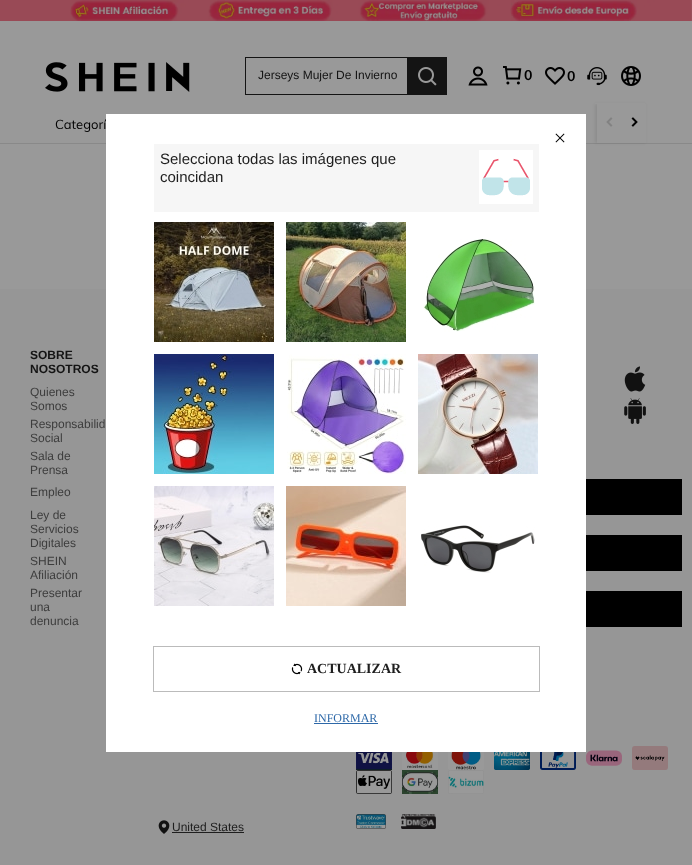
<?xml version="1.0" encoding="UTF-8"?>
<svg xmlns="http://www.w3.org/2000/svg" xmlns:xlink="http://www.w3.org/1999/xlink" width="692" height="865">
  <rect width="100%" height="100%" fill="#999999" />
  <image x="0" y="0" width="692" height="21" xlink:href="image1.png" />
  <rect y="143" width="692" height="1" fill="#898989" />
  <rect x="595" y="104" width="50" height="39" fill="#000000" fill-opacity="0.08" filter="blur(1.5px)" />
  <rect x="595" y="103" width="50" height="1" fill="#999999" />
  <image x="45" y="62" width="145" height="30" xlink:href="image2.png" />
  <rect x="245" y="57" width="162" height="1" fill="#141414" />
  <rect x="245" y="94" width="162" height="1" fill="#141414" />
  <rect x="245" y="57" width="1" height="38" fill="#141414" />
  <rect x="407" y="57" width="40" height="38" fill="#141414" />
  <image x="418" y="67" width="19" height="19" xlink:href="image3.png" />
  <image x="468" y="66" width="20" height="20" xlink:href="image4.png" />
  <image x="503" y="66" width="19" height="19" xlink:href="image5.png" />
  <image x="545" y="67" width="20" height="18" xlink:href="image6.png" />
  <image x="587" y="67" width="20" height="19" xlink:href="image7.png" />
  <image x="621" y="66" width="20" height="20" xlink:href="image8.png" />
  <rect x="597" y="104" width="49" height="39" fill="#999999" />
  <image x="606" y="117" width="7" height="10" xlink:href="image9.png" />
  <image x="631" y="117" width="7" height="10" xlink:href="image10.png" />
  <rect y="289" width="692" height="576" fill="#969696" />
  <image x="624" y="366" width="22" height="26" xlink:href="image11.png" />
  <image x="624" y="398" width="22" height="26" xlink:href="image12.png" />
  <rect x="586" y="479" width="96" height="36" fill="#000000" />
  <rect x="586" y="535" width="96" height="36" fill="#000000" />
  <rect x="586" y="591" width="96" height="36" fill="#000000" />
  <image x="356" y="752" width="36" height="18" xlink:href="image13.png" />
  <image x="402" y="752" width="36" height="18" xlink:href="image14.png" />
  <image x="448" y="752" width="36" height="18" xlink:href="image15.png" />
  <image x="494" y="752" width="36" height="18" xlink:href="image16.png" />
  <image x="540" y="752" width="36" height="18" xlink:href="image17.png" />
  <image x="586" y="750" width="36" height="16" xlink:href="image18.png" />
  <image x="632" y="746" width="36" height="24" xlink:href="image19.png" />
  <image x="356" y="770" width="36" height="24" xlink:href="image20.png" />
  <image x="402" y="770" width="36" height="24" xlink:href="image21.png" />
  <image x="448" y="770" width="36" height="24" xlink:href="image22.png" />
  <image x="158" y="820" width="12" height="14" xlink:href="image23.png" />
  <rect x="172" y="832" width="72" height="1" fill="#1e1e1e" />
  <image x="356" y="814" width="30" height="15" xlink:href="image24.png" />
  <image x="401" y="814" width="35" height="15" xlink:href="image25.png" />
  <rect x="106" y="114" width="480" height="638" fill="#000000" fill-opacity="0.3" filter="blur(0.5px)" />
  <text x="258" y="79" style="font-family: Liberation Sans; font-size: 12px; fill: #141414">Jerseys Mujer De Invierno</text>
  <text x="524" y="80" style="font-family: Muli; font-size: 14px; font-weight: bold; fill: #000000">0</text>
  <text x="567" y="81" style="font-family: Muli; font-size: 14px; font-weight: bold; fill: #000000">0</text>
  <text x="55" y="129" style="font-family: Muli; font-size: 13px; fill: #000000">Categorí</text>
  <text x="30" y="359" style="font-family: Liberation Sans; font-size: 12px; font-weight: bold; fill: #141414">SOBRE</text>
  <text x="30" y="373" style="font-family: Liberation Sans; font-size: 12px; font-weight: bold; fill: #141414">NOSOTROS</text>
  <text x="30" y="396" style="font-family: Liberation Sans; font-size: 12px; fill: #3d3d3d">Quienes</text>
  <text x="30" y="410" style="font-family: Liberation Sans; font-size: 12px; fill: #3d3d3d">Somos</text>
  <text x="30" y="428" style="font-family: Liberation Sans; font-size: 12px; fill: #3d3d3d">Responsabilid</text>
  <text x="30" y="442" style="font-family: Liberation Sans; font-size: 12px; fill: #3d3d3d">Social</text>
  <text x="30" y="460" style="font-family: Liberation Sans; font-size: 12px; fill: #3d3d3d">Sala de</text>
  <text x="30" y="474" style="font-family: Liberation Sans; font-size: 12px; fill: #3d3d3d">Prensa</text>
  <text x="30" y="496" style="font-family: Liberation Sans; font-size: 12px; fill: #3d3d3d">Empleo</text>
  <text x="30" y="519" style="font-family: Liberation Sans; font-size: 12px; fill: #3d3d3d">Ley de</text>
  <text x="30" y="533" style="font-family: Liberation Sans; font-size: 12px; fill: #3d3d3d">Servicios</text>
  <text x="30" y="547" style="font-family: Liberation Sans; font-size: 12px; fill: #3d3d3d">Digitales</text>
  <text x="30" y="565" style="font-family: Liberation Sans; font-size: 12px; fill: #3d3d3d">SHEIN</text>
  <text x="30" y="579" style="font-family: Liberation Sans; font-size: 12px; fill: #3d3d3d">Afiliación</text>
  <text x="30" y="597" style="font-family: Liberation Sans; font-size: 12px; fill: #3d3d3d">Presentar</text>
  <text x="30" y="611" style="font-family: Liberation Sans; font-size: 12px; fill: #3d3d3d">una</text>
  <text x="30" y="625" style="font-family: Liberation Sans; font-size: 12px; fill: #3d3d3d">denuncia</text>
  <text x="172" y="831" style="font-family: Liberation Sans; font-size: 12px; fill: #1e1e1e">United States</text>
  <rect x="106" y="114" width="480" height="638" fill="#ffffff" />
  <image x="555" y="133" width="10" height="10" xlink:href="image26.png" />
  <rect x="154" y="144" width="385" height="68" fill="#f6f6f6" />
  <text x="160" y="164" style="font-family: Liberation Sans; font-size: 15px; fill: #1e1e1e">Selecciona todas las imágenes que</text>
  <text x="160" y="182" style="font-family: Liberation Sans; font-size: 15px; fill: #1e1e1e">coincidan</text>
  <rect x="479" y="150" width="54" height="54" fill="#ffffff" />
  <image x="482" y="158" width="48" height="38" xlink:href="image27.png" />
  <image x="154" y="222" width="120" height="120" xlink:href="image28.png" />
  <image x="286" y="222" width="120" height="120" xlink:href="image29.png" />
  <image x="423" y="239" width="112" height="93" xlink:href="image30.png" />
  <image x="154" y="354" width="120" height="120" xlink:href="image31.png" />
  <image x="287" y="354" width="119" height="120" xlink:href="image32.png" />
  <image x="418" y="354" width="120" height="120" xlink:href="image33.png" />
  <image x="154" y="486" width="120" height="120" xlink:href="image34.png" />
  <image x="286" y="486" width="120" height="120" xlink:href="image35.png" />
  <image x="421" y="525" width="114" height="48" xlink:href="image36.png" />
  <rect x="153.5" y="646.5" width="386" height="45" fill="none" stroke="#bbbbbb" />
  <image x="291" y="663" width="12" height="12" xlink:href="image37.png" />
  <text x="307" y="673" style="font-family: Liberation Serif; font-size: 14px; font-weight: bold; fill: #1e1e1e">ACTUALIZAR</text>
  <text x="314" y="722" style="font-family: Liberation Serif; font-size: 12px; fill: #2d68a8">INFORMAR</text>
  <rect x="314" y="723" width="64" height="1" fill="#2d68a8" />
</svg>
